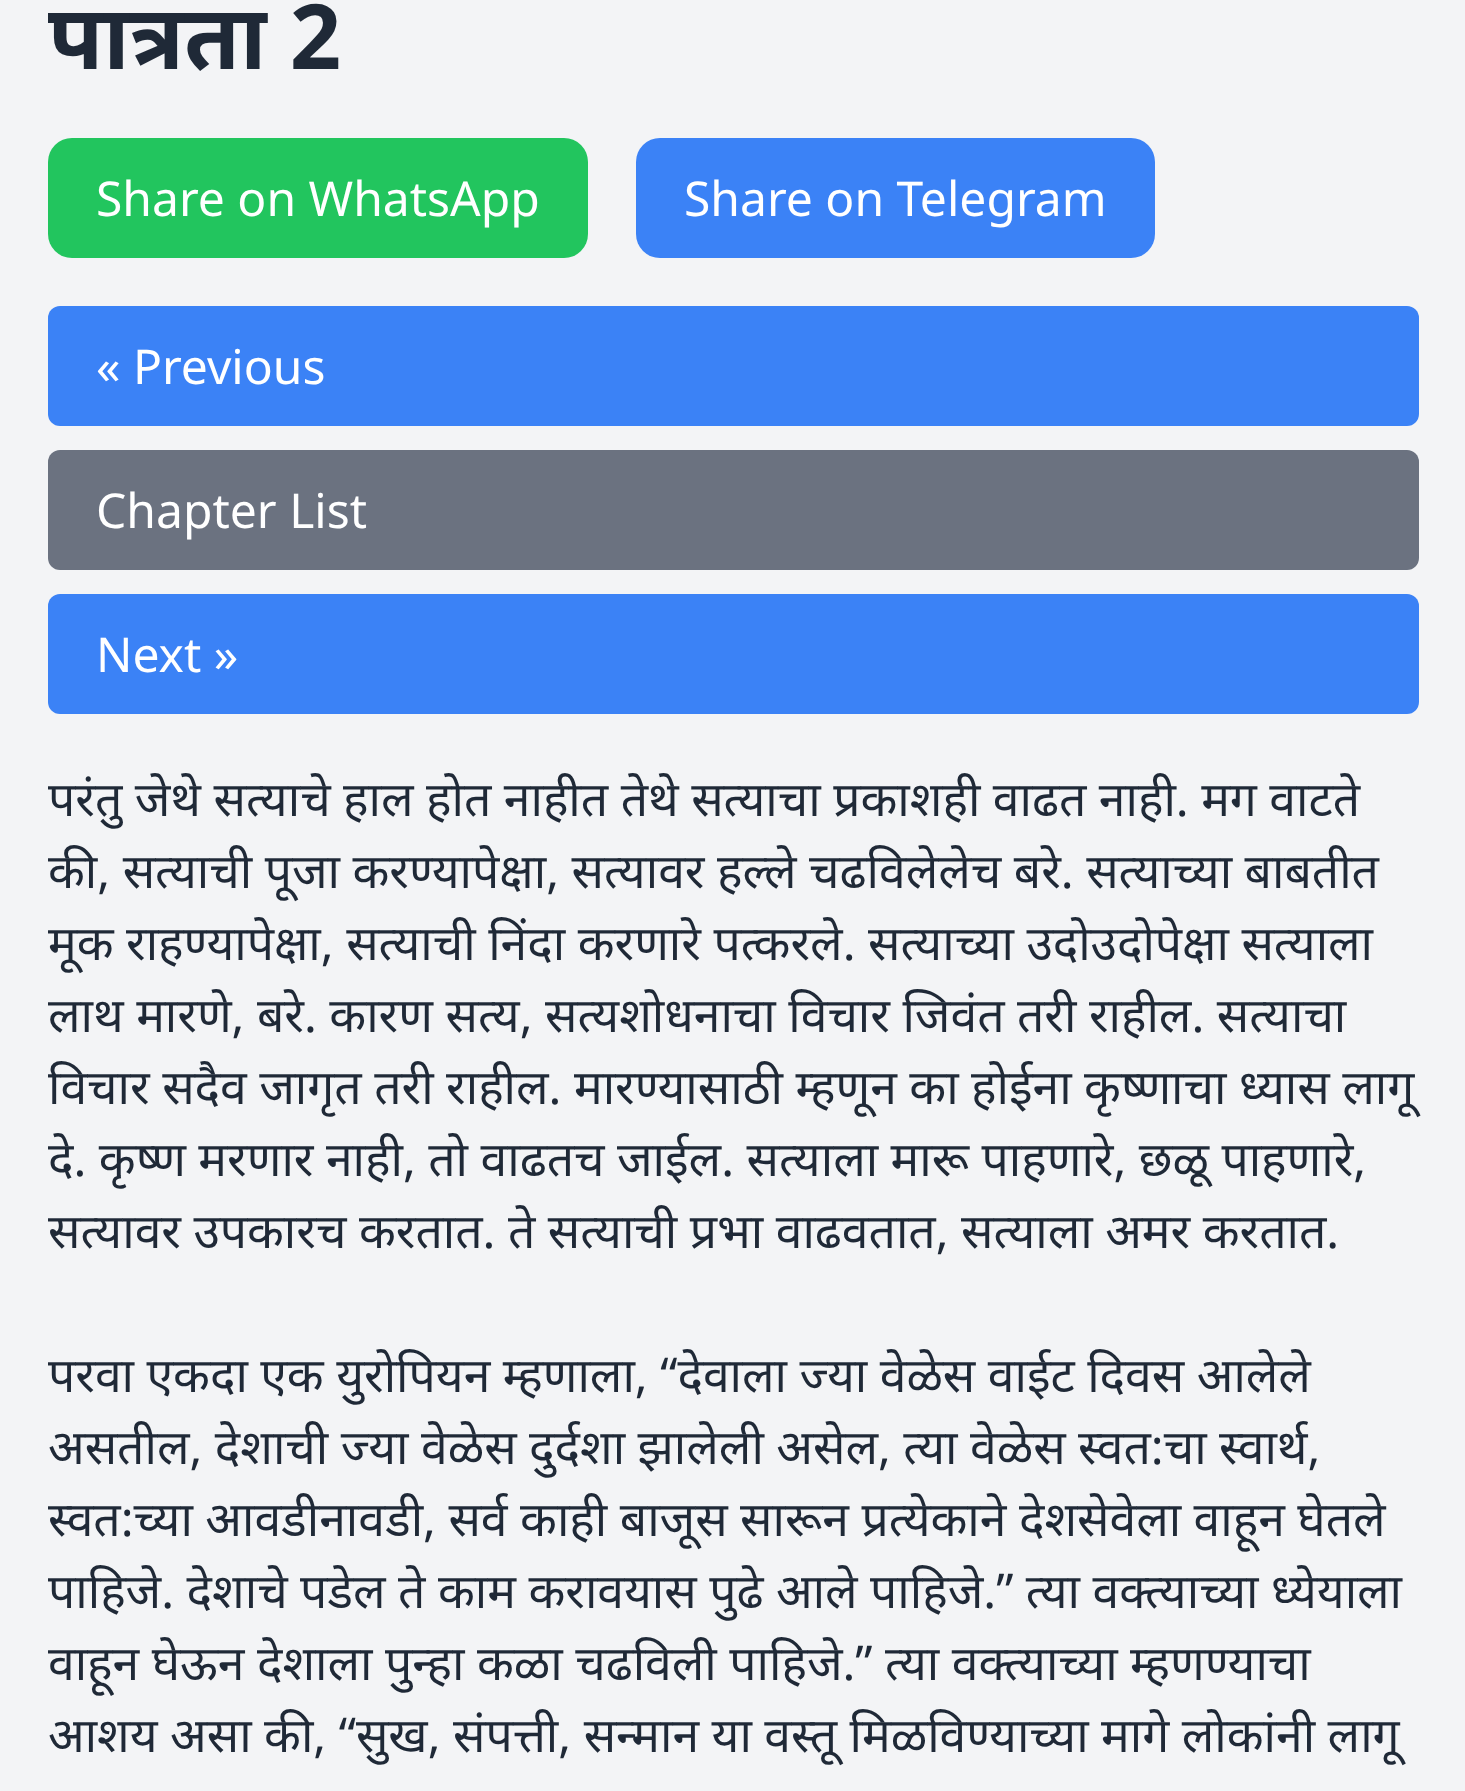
<?xml version="1.0" encoding="UTF-8"?>
<svg xmlns="http://www.w3.org/2000/svg" xmlns:xlink="http://www.w3.org/1999/xlink" width="1465" height="1791">
  <rect width="100%" height="100%" fill="#f3f4f6" />
  <rect x="48" y="138" width="540" height="120" rx="24" fill="#22c55e" />
  <rect x="636" y="138" width="519" height="120" rx="24" fill="#3b82f6" />
  <rect x="48" y="306" width="1371" height="120" rx="12" fill="#3b82f6" />
  <rect x="48" y="450" width="1371" height="120" rx="12" fill="#6b7280" />
  <rect x="48" y="594" width="1371" height="120" rx="12" fill="#3b82f6" />
  <text x="48" y="69" style="font-family: Noto Sans; font-size: 90px; font-weight: bold; fill: #1f2937">पात्रता 2</text>
  <text x="96" y="216" style="font-family: Noto Sans; font-size: 48px; fill: #ffffff">Share on WhatsApp</text>
  <text x="684" y="216" style="font-family: Noto Sans; font-size: 48px; fill: #ffffff">Share on Telegram</text>
  <text x="96" y="384" style="font-family: Noto Sans; font-size: 48px; fill: #ffffff">« Previous</text>
  <text x="96" y="528" style="font-family: Noto Sans; font-size: 48px; fill: #ffffff">Chapter List</text>
  <text x="96" y="672" style="font-family: Noto Sans; font-size: 48px; fill: #ffffff">Next »</text>
  <text x="48" y="816" style="font-family: Noto Sans; font-size: 48px; fill: #1f2937">परंतु जेथे सत्याचे हाल होत नाहीत तेथे सत्याचा प्रकाशही वाढत नाही. मग वाटते</text>
  <text x="48" y="888" style="font-family: Noto Sans; font-size: 48px; fill: #1f2937">की, सत्याची पूजा करण्यापेक्षा, सत्यावर हल्ले चढविलेलेच बरे. सत्याच्या बाबतीत</text>
  <text x="48" y="960" style="font-family: Noto Sans; font-size: 48px; fill: #1f2937">मूक राहण्यापेक्षा, सत्याची निंदा करणारे पत्करले. सत्याच्या उदोउदोपेक्षा सत्याला</text>
  <text x="48" y="1032" style="font-family: Noto Sans; font-size: 48px; fill: #1f2937">लाथ मारणे, बरे. कारण सत्य, सत्यशोधनाचा विचार जिवंत तरी राहील. सत्याचा</text>
  <text x="48" y="1104" style="font-family: Noto Sans; font-size: 48px; fill: #1f2937">विचार सदैव जागृत तरी राहील. मारण्यासाठी म्हणून का होईना कृष्णाचा ध्यास लागू</text>
  <text x="48" y="1176" style="font-family: Noto Sans; font-size: 48px; fill: #1f2937">दे. कृष्ण मरणार नाही, तो वाढतच जाईल. सत्याला मारू पाहणारे, छळू पाहणारे,</text>
  <text x="48" y="1248" style="font-family: Noto Sans; font-size: 48px; fill: #1f2937">सत्यावर उपकारच करतात. ते सत्याची प्रभा वाढवतात, सत्याला अमर करतात.</text>
  <text x="48" y="1392" style="font-family: Noto Sans; font-size: 48px; fill: #1f2937">परवा एकदा एक युरोपियन म्हणाला, “देवाला ज्या वेळेस वाईट दिवस आलेले</text>
  <text x="48" y="1464" style="font-family: Noto Sans; font-size: 48px; fill: #1f2937">असतील, देशाची ज्या वेळेस दुर्दशा झालेली असेल, त्या वेळेस स्वत:चा स्वार्थ,</text>
  <text x="48" y="1536" style="font-family: Noto Sans; font-size: 48px; fill: #1f2937">स्वत:च्या आवडीनावडी, सर्व काही बाजूस सारून प्रत्येकाने देशसेवेला वाहून घेतले</text>
  <text x="48" y="1608" style="font-family: Noto Sans; font-size: 48px; fill: #1f2937">पाहिजे. देशाचे पडेल ते काम करावयास पुढे आले पाहिजे.” त्या वक्त्याच्या ध्येयाला</text>
  <text x="48" y="1680" style="font-family: Noto Sans; font-size: 48px; fill: #1f2937">वाहून घेऊन देशाला पुन्हा कळा चढविली पाहिजे.” त्या वक्त्याच्या म्हणण्याचा</text>
  <text x="48" y="1752" style="font-family: Noto Sans; font-size: 48px; fill: #1f2937">आशय असा की, “सुख, संपत्ती, सन्मान या वस्तू मिळविण्याच्या मागे लोकांनी लागू</text>
</svg>
